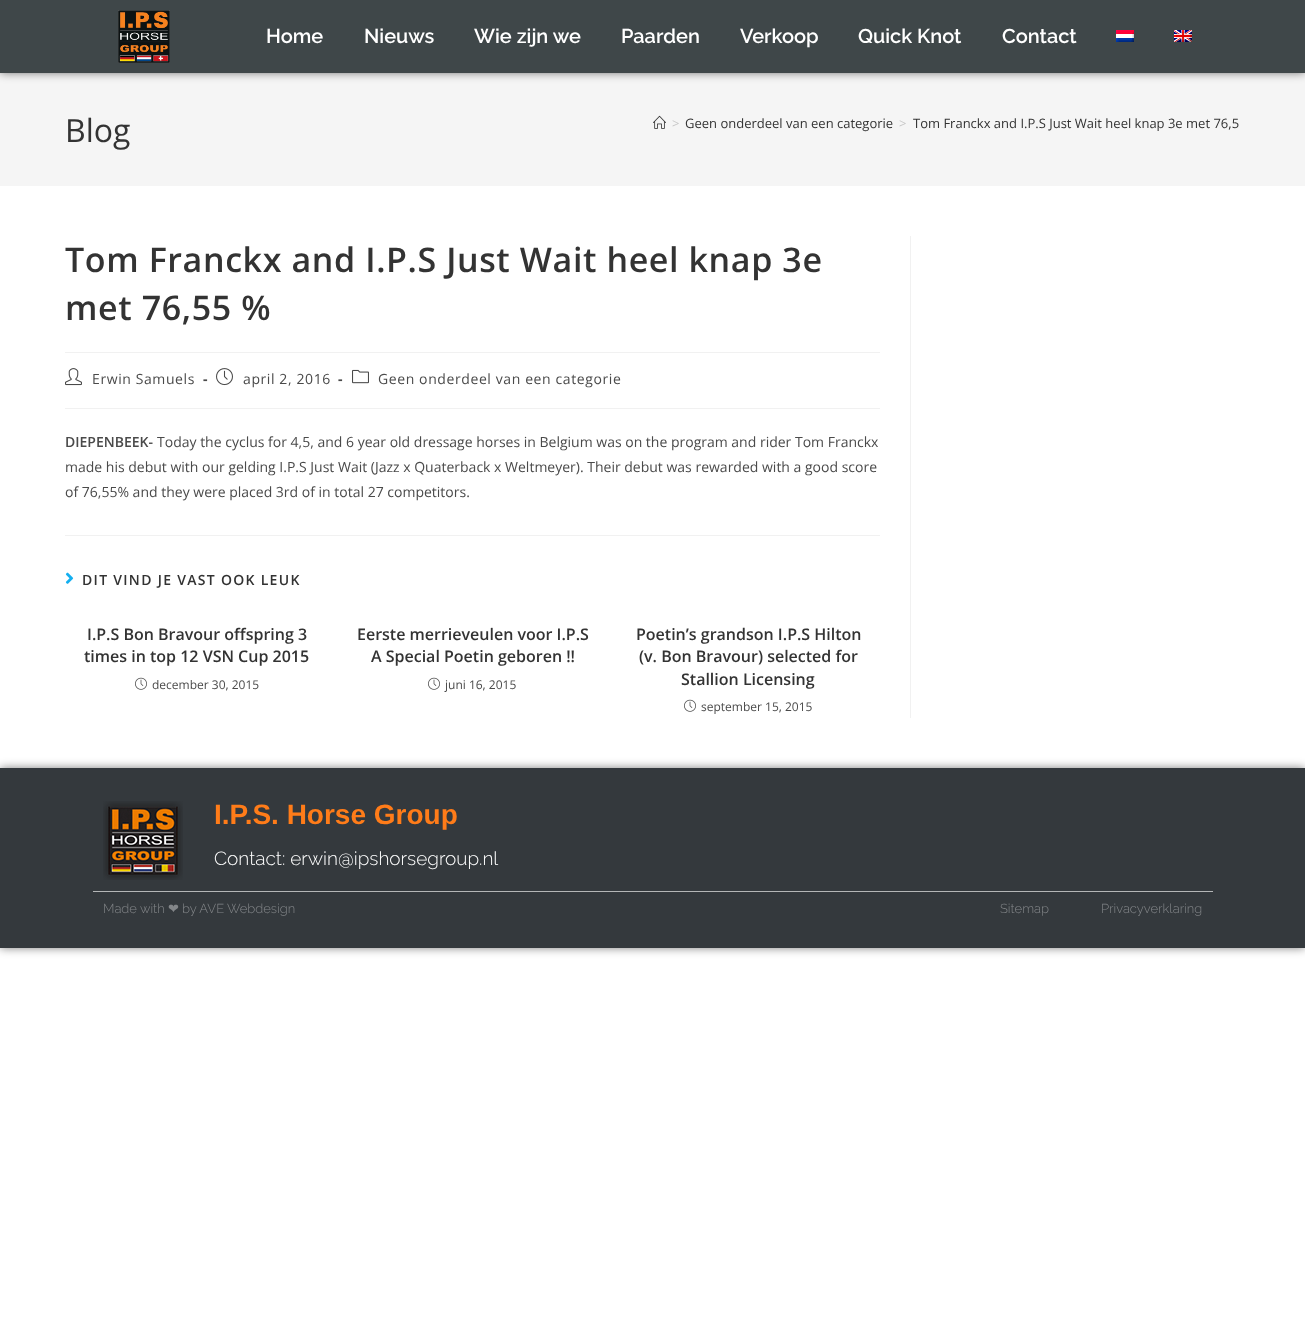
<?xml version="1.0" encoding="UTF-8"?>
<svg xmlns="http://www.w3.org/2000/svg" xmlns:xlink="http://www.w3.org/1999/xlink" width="1305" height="1325">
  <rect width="100%" height="100%" fill="#ffffff" />
  <rect y="73" width="1305" height="1" fill="#f1f1f1" />
  <rect y="74" width="1305" height="112" fill="#f5f5f5" />
  <rect width="1305" height="73" fill="#000000" fill-opacity="0.5" filter="blur(5px)" />
  <rect width="1305" height="73" fill="#3f4749" />
  <image x="118" y="10" width="52" height="53" xlink:href="image1.png" />
  <image x="1116" y="30" width="18" height="12" xlink:href="image2.png" />
  <image x="1174" y="30" width="18" height="12" xlink:href="image3.png" />
  <image x="653" y="115" width="13" height="14" xlink:href="image4.png" />
  <rect x="910" y="236" width="1" height="482" fill="#f1f1f1" />
  <rect x="65" y="352" width="815" height="1" fill="#f1f1f1" />
  <rect x="65" y="408" width="815" height="1" fill="#f1f1f1" />
  <image x="65" y="368" width="17" height="18" xlink:href="image5.png" />
  <image x="216" y="368" width="17" height="18" xlink:href="image6.png" />
  <image x="352" y="369" width="17" height="15" xlink:href="image7.png" />
  <rect x="65" y="535" width="815" height="1" fill="#f1f1f1" />
  <image x="65" y="572" width="9" height="12" xlink:href="image8.png" />
  <image x="135" y="677" width="12" height="13" xlink:href="image9.png" />
  <image x="428" y="677" width="12" height="13" xlink:href="image9.png" />
  <image x="684" y="699" width="12" height="13" xlink:href="image9.png" />
  <rect y="768" width="1305" height="180" fill="#000000" fill-opacity="0.5" filter="blur(5px)" />
  <rect y="768" width="1305" height="180" fill="#34393d" />
  <image x="103" y="801" width="80" height="79" xlink:href="image10.png" />
  <rect x="93" y="891" width="1120" height="1" fill="#b4b6b7" />
  <text x="266" y="43" style="font-family: Raleway; font-size: 20px; font-weight: 600; fill: #ffffff">Home</text>
  <text x="364" y="43" style="font-family: Raleway; font-size: 20px; font-weight: 600; fill: #ffffff">Nieuws</text>
  <text x="474" y="43" style="font-family: Raleway; font-size: 20px; font-weight: 600; fill: #ffffff">Wie zijn we</text>
  <text x="621" y="43" style="font-family: Raleway; font-size: 20px; font-weight: 600; fill: #ffffff">Paarden</text>
  <text x="740" y="43" style="font-family: Raleway; font-size: 20px; font-weight: 600; fill: #ffffff">Verkoop</text>
  <text x="858" y="43" style="font-family: Raleway; font-size: 20px; font-weight: 600; fill: #ffffff">Quick Knot</text>
  <text x="1002" y="43" style="font-family: Raleway; font-size: 20px; font-weight: 600; fill: #ffffff">Contact</text>
  <text x="65" y="142" style="font-family: Open Sans; font-size: 32px; fill: #333333">Blog</text>
  <text x="672" y="128" style="font-family: Open Sans; font-size: 13px; fill: #c6c6c6">&gt;</text>
  <text x="685" y="128" style="font-family: Open Sans; font-size: 13px; fill: #333333">Geen onderdeel van een categorie</text>
  <text x="899" y="128" style="font-family: Open Sans; font-size: 13px; fill: #c6c6c6">&gt;</text>
  <text x="913" y="128" style="font-family: Open Sans; font-size: 13px; fill: #333333">Tom Franckx and I.P.S Just Wait heel knap 3e met 76,5</text>
  <text x="65" y="272" style="font-family: Open Sans; font-size: 34px; font-weight: 600; letter-spacing: 0.6px; fill: #333333">Tom Franckx and I.P.S Just Wait heel knap 3e</text>
  <text x="65" y="320" style="font-family: Open Sans; font-size: 34px; font-weight: 600; letter-spacing: 0.6px; fill: #333333">met 76,55 %</text>
  <text x="92" y="384" style="font-family: Open Sans; font-size: 14px; letter-spacing: 0.6px; fill: #4a4a4a">Erwin Samuels</text>
  <text x="203" y="384" style="font-family: Open Sans; font-size: 14px; font-weight: bold; letter-spacing: 0.6px; fill: #4a4a4a">-</text>
  <text x="243" y="384" style="font-family: Open Sans; font-size: 14px; letter-spacing: 0.6px; fill: #4a4a4a">april 2, 2016</text>
  <text x="338" y="384" style="font-family: Open Sans; font-size: 14px; font-weight: bold; letter-spacing: 0.6px; fill: #4a4a4a">-</text>
  <text x="378" y="384" style="font-family: Open Sans; font-size: 14px; letter-spacing: 0.6px; fill: #4a4a4a">Geen onderdeel van een categorie</text>
  <text x="65" y="447" style="font-family: Open Sans; font-size: 14px; font-weight: 600; fill: #4a4a4a">DIEPENBEEK-</text>
  <text x="157" y="447" style="font-family: Open Sans; font-size: 14px; fill: #4a4a4a">Today the cyclus for 4,5, and 6 year old dressage horses in Belgium was on the program and rider Tom Franckx</text>
  <text x="65" y="472" style="font-family: Open Sans; font-size: 14px; fill: #4a4a4a">made his debut with our gelding I.P.S Just Wait (Jazz x Quaterback x Weltmeyer). Their debut was rewarded with a good score</text>
  <text x="65" y="497" style="font-family: Open Sans; font-size: 14px; fill: #4a4a4a">of 76,55% and they were placed 3rd of in total 27 competitors.</text>
  <text x="82" y="585" style="font-family: Open Sans; font-size: 14px; font-weight: 600; letter-spacing: 1.3px; fill: #333333">DIT VIND JE VAST OOK LEUK</text>
  <text x="87" y="640" style="font-family: Open Sans; font-size: 16px; font-weight: 600; fill: #333333">I.P.S Bon Bravour offspring 3</text>
  <text x="84" y="662" style="font-family: Open Sans; font-size: 16px; font-weight: 600; fill: #333333">times in top 12 VSN Cup 2015</text>
  <text x="152" y="689" style="font-family: Open Sans; font-size: 12px; fill: #4a4a4a">december 30, 2015</text>
  <text x="357" y="640" style="font-family: Open Sans; font-size: 16px; font-weight: 600; fill: #333333">Eerste merrieveulen voor I.P.S</text>
  <text x="371" y="662" style="font-family: Open Sans; font-size: 16px; font-weight: 600; fill: #333333">A Special Poetin geboren !!</text>
  <text x="445" y="689" style="font-family: Open Sans; font-size: 12px; fill: #4a4a4a">juni 16, 2015</text>
  <text x="636" y="640" style="font-family: Open Sans; font-size: 16px; font-weight: 600; fill: #333333">Poetin’s grandson I.P.S Hilton</text>
  <text x="639" y="662" style="font-family: Open Sans; font-size: 16px; font-weight: 600; fill: #333333">(v. Bon Bravour) selected for</text>
  <text x="681" y="685" style="font-family: Open Sans; font-size: 16px; font-weight: 600; fill: #333333">Stallion Licensing</text>
  <text x="701" y="711" style="font-family: Open Sans; font-size: 12px; fill: #4a4a4a">september 15, 2015</text>
  <text x="214" y="824" style="font-family: Liberation Sans; font-size: 28px; font-weight: bold; fill: #ff7c19">I.P.S. Horse Group</text>
  <text x="214" y="865" style="font-family: Raleway; font-size: 19px; font-weight: 300; fill: #ffffff">Contact: erwin@ipshorsegroup.nl</text>
  <text x="103" y="913" style="font-family: Raleway; font-size: 13px; font-weight: 300; fill: #838689">Made with</text>
  <text x="168" y="913" style="font-family: DejaVu Sans; font-size: 13px; fill: #838689">❤</text>
  <text x="182" y="913" style="font-family: Raleway; font-size: 13px; font-weight: 300; fill: #838689">by AVE Webdesign</text>
  <text x="1000" y="913" style="font-family: Raleway; font-size: 13px; font-weight: 300; fill: #838689">Sitemap</text>
  <text x="1101" y="913" style="font-family: Raleway; font-size: 13px; font-weight: 300; fill: #838689">Privacyverklaring</text>
</svg>
